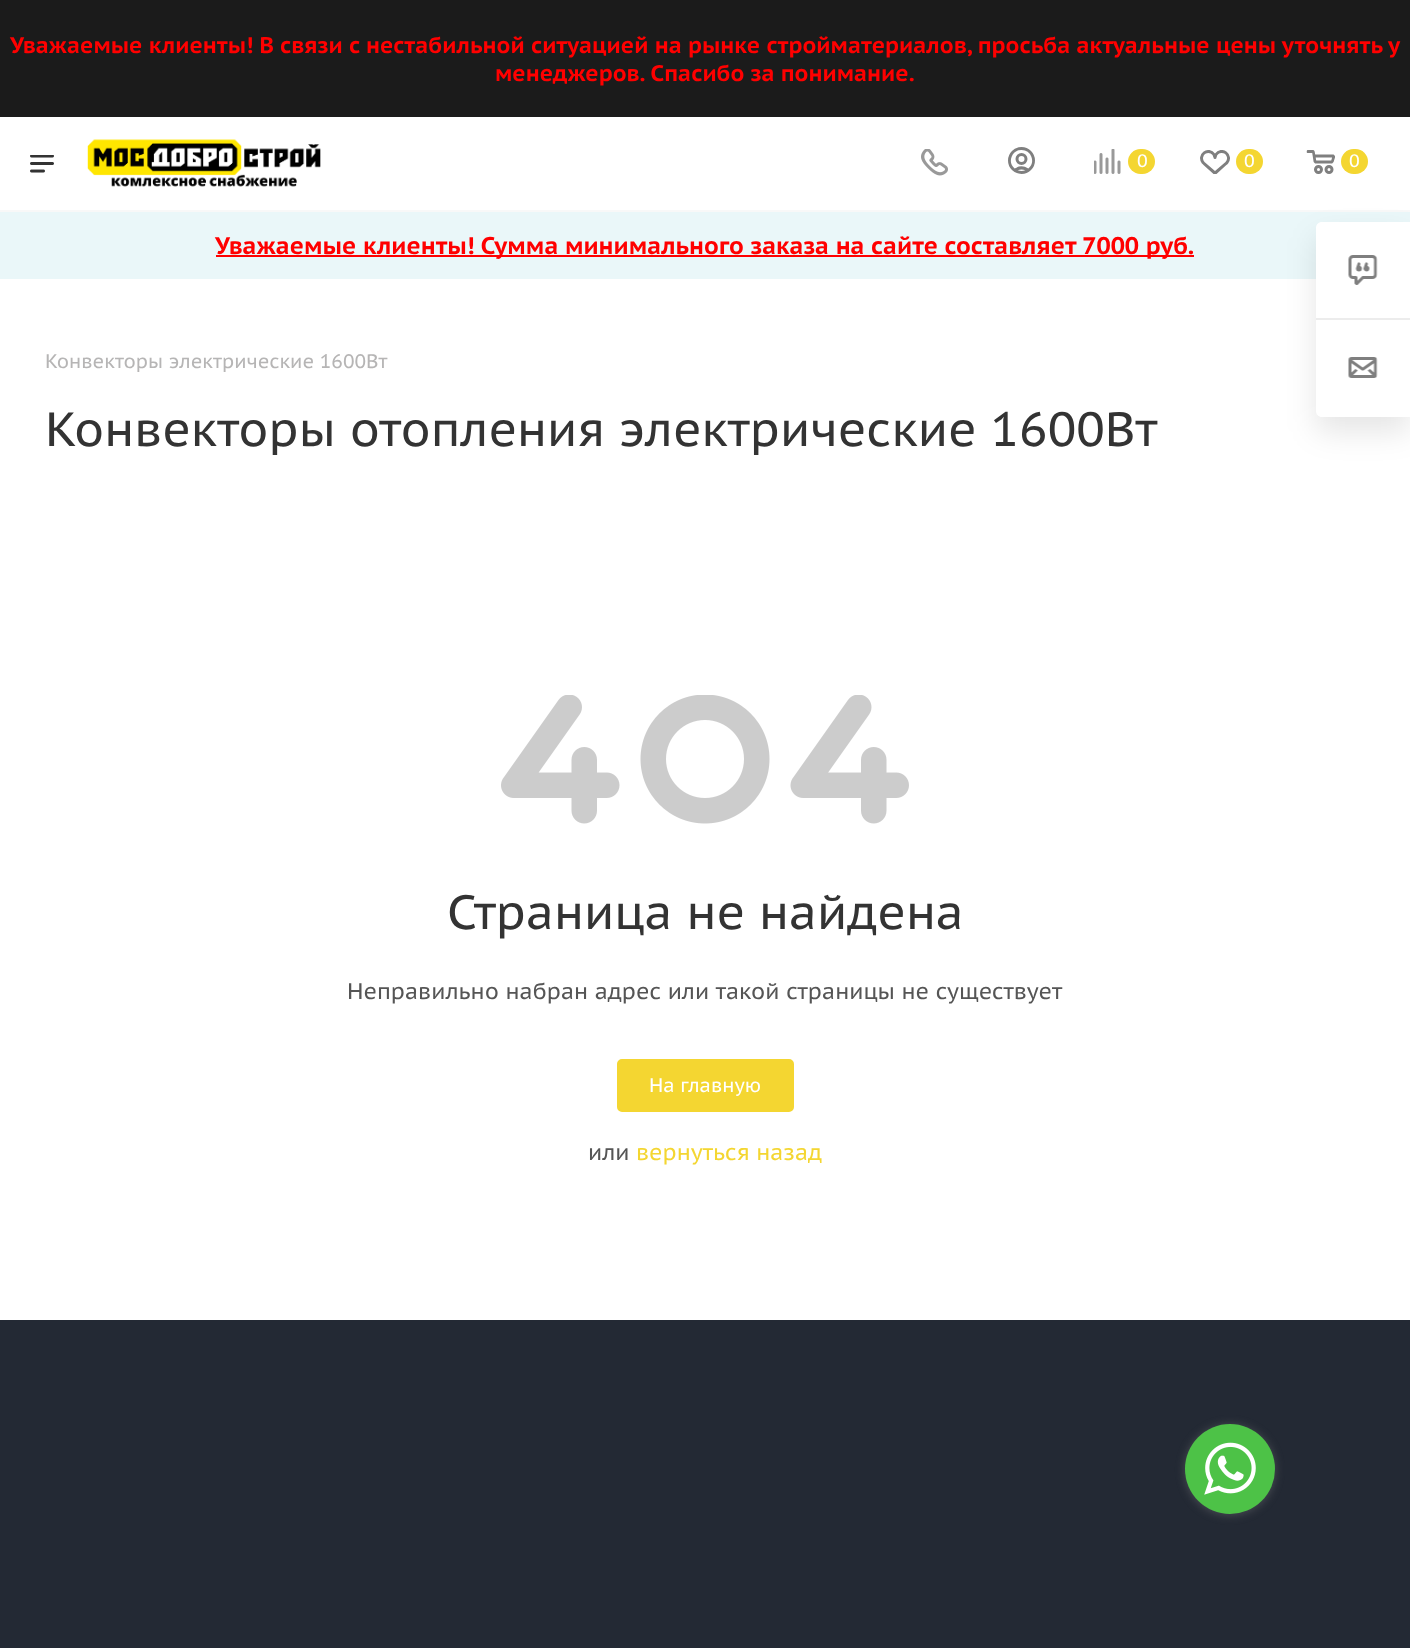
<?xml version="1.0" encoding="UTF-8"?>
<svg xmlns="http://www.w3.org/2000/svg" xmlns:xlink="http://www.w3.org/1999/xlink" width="1410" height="1648">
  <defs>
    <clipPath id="clip1"><rect x="45" y="401" width="1320" height="54" /></clipPath>
  </defs>
  <rect width="100%" height="100%" fill="#ffffff" />
  <rect width="1410" height="117" fill="#1b1b1b" />
  <rect y="210" width="1410" height="2" fill="#f8f8f8" />
  <image x="30" y="155" width="24" height="18" xlink:href="image1.png" />
  <image x="87" y="139" width="234" height="48" xlink:href="image2.png" />
  <image x="921" y="149" width="27" height="27" xlink:href="image3.png" />
  <image x="1008" y="147" width="27" height="27" xlink:href="image4.png" />
  <image x="1094" y="149" width="27" height="25" xlink:href="image5.png" />
  <rect x="1128" y="149" width="27" height="25" rx="12.5" fill="#f4d631" />
  <image x="1200" y="150" width="30" height="24" xlink:href="image6.png" />
  <rect x="1236" y="149" width="27" height="25" rx="12.5" fill="#f4d631" />
  <image x="1306" y="150" width="29" height="24" xlink:href="image7.png" />
  <rect x="1341" y="149" width="27" height="25" rx="12.5" fill="#f4d631" />
  <rect y="212" width="1410" height="67" fill="#eaf7f9" />
  <rect x="216" y="255" width="978" height="2" fill="#ff0000" />
  <image x="501" y="695" width="408" height="129" xlink:href="image8.png" />
  <rect x="618" y="1060" width="175" height="51" rx="4" fill="#f4d631" stroke="#f4d631" stroke-width="2" />
  <rect x="1316" y="237" width="94" height="195" rx="6" fill="#000000" fill-opacity="0.1" filter="blur(15px)" />
  <path d="M 1322 222 h 88 v 195 h -88 c -3.5 0 -6 -2.5 -6 -6 v -183 c 0 -3.5 2.5 -6 6 -6 z" fill="#ffffff" />
  <rect x="1316" y="318" width="94" height="2" fill="#ececec" />
  <image x="1348" y="255" width="30" height="30" xlink:href="image9.png" />
  <image x="1348" y="357" width="30" height="21" xlink:href="image10.png" />
  <rect y="1320" width="1410" height="328" fill="#232934" />
  <rect x="1185" y="1425" width="90" height="90" rx="45" fill="#888888" fill-opacity="0.4" filter="blur(5px)" />
  <circle cx="1230" cy="1469" r="45" fill="#4dc247" />
  <image x="1204" y="1442" width="52" height="53" xlink:href="image11.png" />
  <text x="10" y="53" style="font-family: PT Sans Caption; font-size: 22.5px; font-weight: bold; fill: #ff0000">Уважаемые клиенты! В связи с нестабильной ситуацией на рынке стройматериалов, просьба актуальные цены уточнять у</text>
  <text x="495" y="81" style="font-family: PT Sans Caption; font-size: 22.5px; font-weight: bold; fill: #ff0000">менеджеров. Спасибо за понимание.</text>
  <text x="1137" y="167" style="font-family: PT Sans Caption; font-size: 18px; fill: #ffffff">0</text>
  <text x="1244" y="167" style="font-family: PT Sans Caption; font-size: 18px; fill: #ffffff">0</text>
  <text x="1349" y="167" style="font-family: PT Sans Caption; font-size: 18px; fill: #ffffff">0</text>
  <text x="215" y="254" style="font-family: PT Sans Caption; font-size: 24px; font-weight: bold; fill: #ff0000">Уважаемые клиенты! Сумма минимального заказа на сайте составляет 7000 руб.</text>
  <text x="45" y="368" style="font-family: PT Sans Caption; font-size: 19.5px; fill: #b6b5b5">Конвекторы электрические 1600Вт</text>
  <g clip-path="url(#clip1)">
    <text x="45" y="446" style="font-family: PT Sans Caption; font-size: 48px; fill: #333333">Конвекторы отопления электрические 1600Вт</text>
  </g>
  <text x="447" y="929" style="font-family: PT Sans Caption; font-size: 48px; fill: #333333">Страница не найдена</text>
  <text x="347" y="999" style="font-family: PT Sans Caption; font-size: 22.5px; fill: #555555">Неправильно набран адрес или такой страницы не существует</text>
  <text x="649" y="1092" style="font-family: PT Sans Caption; font-size: 19.5px; fill: #ffffff">На главную</text>
  <text x="588" y="1160" style="font-family: PT Sans Caption; font-size: 22.5px; fill: #555555">или</text>
  <text x="636" y="1160" style="font-family: PT Sans Caption; font-size: 22.5px; fill: #f4d631">вернуться назад</text>
</svg>
